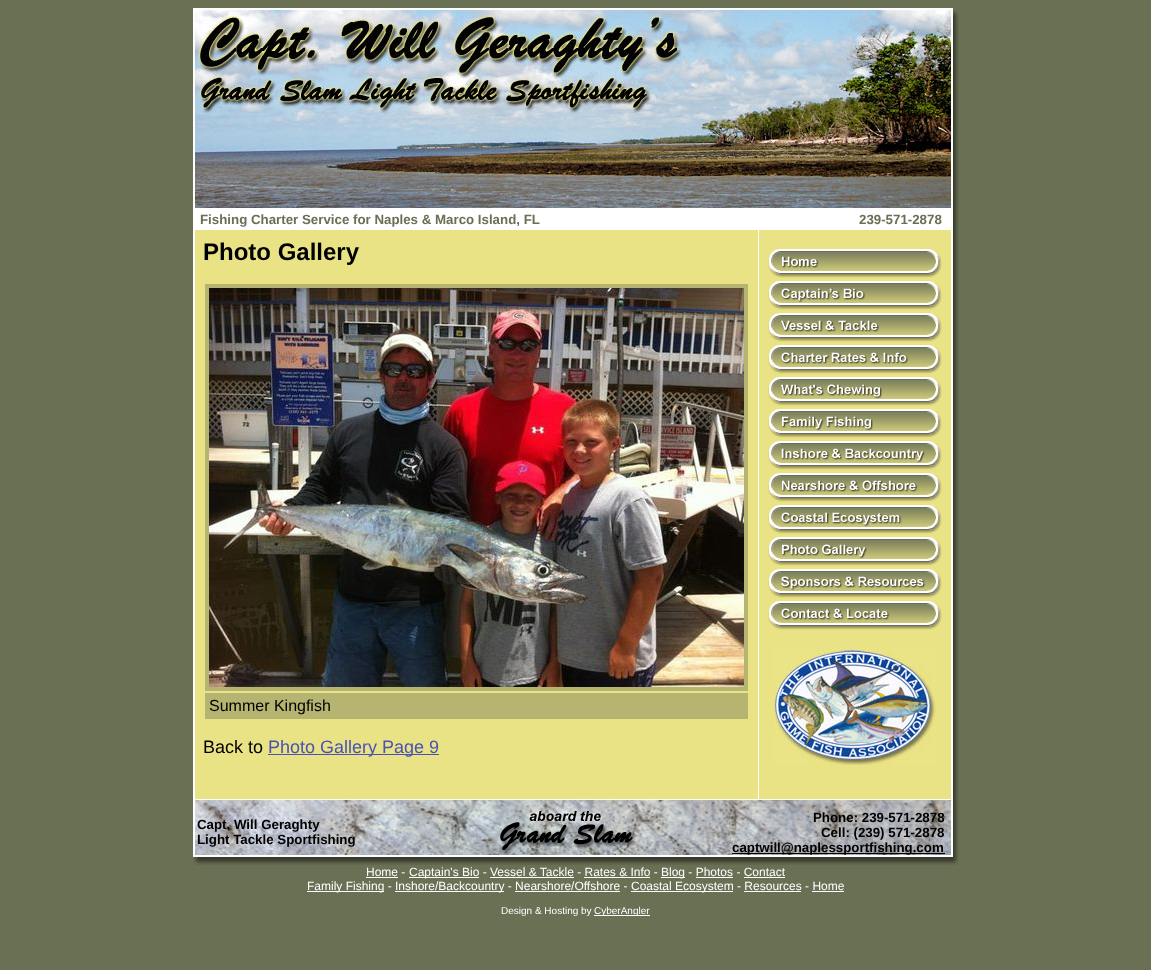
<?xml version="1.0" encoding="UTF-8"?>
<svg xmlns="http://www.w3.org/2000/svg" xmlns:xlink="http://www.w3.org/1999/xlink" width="1151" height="970">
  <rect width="100%" height="100%" fill="#6a7054" />
  <image x="193" y="8" width="766" height="200" xlink:href="image1.png" />
  <image x="193" y="208" width="766" height="22" xlink:href="image2.png" />
  <rect x="193" y="230" width="2" height="569" fill="#ffffff" />
  <rect x="195" y="230" width="563" height="569" fill="#eae385" />
  <rect x="205" y="284" width="543" height="407" fill="#b5b471" />
  <image x="209" y="288" width="535" height="399" xlink:href="image3.png" />
  <rect x="205" y="693" width="543" height="26" fill="#b5b471" />
  <rect x="268" y="754" width="171" height="1" fill="#4a52b5" />
  <rect x="758" y="230" width="1" height="569" fill="#ffffff" />
  <rect x="759" y="230" width="192" height="569" fill="#eae385" />
  <image x="768" y="249" width="174" height="26" xlink:href="image4.png" />
  <image x="774" y="275" width="162" height="3" xlink:href="image5.png" />
  <image x="768" y="281" width="174" height="26" xlink:href="image6.png" />
  <image x="774" y="307" width="162" height="3" xlink:href="image5.png" />
  <image x="768" y="313" width="174" height="26" xlink:href="image7.png" />
  <image x="774" y="339" width="162" height="3" xlink:href="image5.png" />
  <image x="768" y="345" width="174" height="26" xlink:href="image8.png" />
  <image x="774" y="371" width="162" height="3" xlink:href="image5.png" />
  <image x="768" y="377" width="174" height="26" xlink:href="image9.png" />
  <image x="774" y="403" width="162" height="3" xlink:href="image5.png" />
  <image x="768" y="409" width="174" height="26" xlink:href="image10.png" />
  <image x="774" y="435" width="162" height="3" xlink:href="image5.png" />
  <image x="768" y="441" width="174" height="26" xlink:href="image11.png" />
  <image x="774" y="467" width="162" height="3" xlink:href="image5.png" />
  <image x="768" y="473" width="174" height="26" xlink:href="image12.png" />
  <image x="774" y="499" width="162" height="3" xlink:href="image5.png" />
  <image x="768" y="505" width="174" height="26" xlink:href="image13.png" />
  <image x="774" y="531" width="162" height="3" xlink:href="image5.png" />
  <image x="768" y="537" width="174" height="26" xlink:href="image14.png" />
  <image x="774" y="563" width="162" height="3" xlink:href="image5.png" />
  <image x="768" y="569" width="174" height="26" xlink:href="image15.png" />
  <image x="774" y="595" width="162" height="3" xlink:href="image5.png" />
  <image x="768" y="601" width="174" height="26" xlink:href="image16.png" />
  <image x="774" y="627" width="162" height="3" xlink:href="image5.png" />
  <image x="773" y="648" width="164" height="117" xlink:href="image17.png" />
  <image x="951" y="230" width="8" height="569" xlink:href="image18.png" />
  <image x="193" y="799" width="766" height="66" xlink:href="image19.png" />
  <image x="500" y="809" width="136" height="46" xlink:href="image20.png" />
  <rect x="732" y="853" width="213" height="1" fill="#000000" />
  <rect x="366" y="877" width="32" height="1" fill="#ffffff" />
  <rect x="409" y="877" width="70" height="1" fill="#ffffff" />
  <rect x="661" y="877" width="24" height="1" fill="#ffffff" />
  <rect x="490" y="877" width="84" height="1" fill="#ffffff" />
  <rect x="584" y="877" width="66" height="1" fill="#ffffff" />
  <rect x="696" y="877" width="37" height="1" fill="#ffffff" />
  <rect x="744" y="877" width="41" height="1" fill="#ffffff" />
  <rect x="307" y="891" width="77" height="1" fill="#ffffff" />
  <rect x="395" y="891" width="109" height="1" fill="#ffffff" />
  <rect x="631" y="891" width="102" height="1" fill="#ffffff" />
  <rect x="515" y="891" width="105" height="1" fill="#ffffff" />
  <rect x="744" y="891" width="57" height="1" fill="#ffffff" />
  <rect x="812" y="891" width="32" height="1" fill="#ffffff" />
  <rect x="594" y="915" width="56" height="1" fill="#ffffff" />
  <text x="200" y="224" style="font-family: Liberation Sans; font-size: 13.3px; font-weight: bold; fill: #6a7054">Fishing Charter Service for Naples &amp; Marco Island, FL</text>
  <text x="859" y="224" style="font-family: Liberation Sans; font-size: 13.3px; font-weight: bold; fill: #6a7054">239-571-2878</text>
  <text x="203" y="260" style="font-family: Liberation Sans; font-size: 24px; font-weight: bold; fill: #000000">Photo Gallery</text>
  <text x="209" y="711" style="font-family: Liberation Sans; font-size: 16px; fill: #000000">Summer Kingfish</text>
  <text x="203" y="753" style="font-family: Liberation Sans; font-size: 18px; fill: #000000">Back to</text>
  <text x="268" y="753" style="font-family: Liberation Sans; font-size: 18px; fill: #4a52b5">Photo Gallery Page 9</text>
  <text x="197" y="829" style="font-family: Liberation Sans; font-size: 13.3px; font-weight: bold; fill: #000000">Capt. Will Geraghty</text>
  <text x="197" y="844" style="font-family: Liberation Sans; font-size: 13.3px; font-weight: bold; fill: #000000">Light Tackle Sportfishing</text>
  <text x="813" y="822" style="font-family: Liberation Sans; font-size: 13.3px; font-weight: bold; fill: #000000">Phone: 239-571-2878</text>
  <text x="821" y="837" style="font-family: Liberation Sans; font-size: 13.3px; font-weight: bold; fill: #000000">Cell: (239) 571-2878</text>
  <text x="732" y="852" style="font-family: Liberation Sans; font-size: 13.3px; font-weight: bold; fill: #000000">captwill@naplessportfishing.com</text>
  <text x="366" y="876" style="font-family: Liberation Sans; font-size: 12px; fill: #ffffff">Home -</text>
  <text x="409" y="876" style="font-family: Liberation Sans; font-size: 12px; fill: #ffffff">Captain's Bio - Vessel &amp; Tackle - Rates &amp; Info -</text>
  <text x="661" y="876" style="font-family: Liberation Sans; font-size: 12px; fill: #ffffff">Blog - Photos - Contact</text>
  <text x="307" y="890" style="font-family: Liberation Sans; font-size: 12px; fill: #ffffff">Family Fishing -</text>
  <text x="395" y="890" style="font-family: Liberation Sans; font-size: 12px; fill: #ffffff">Inshore/Backcountry - Nearshore/Offshore -</text>
  <text x="631" y="890" style="font-family: Liberation Sans; font-size: 12px; fill: #ffffff">Coastal Ecosystem - Resources - Home</text>
  <text x="501" y="914" style="font-family: Liberation Sans; font-size: 10px; fill: #ffffff">Design &amp; Hosting by</text>
  <text x="594" y="914" style="font-family: Liberation Sans; font-size: 10px; fill: #ffffff">CyberAngler</text>
</svg>
